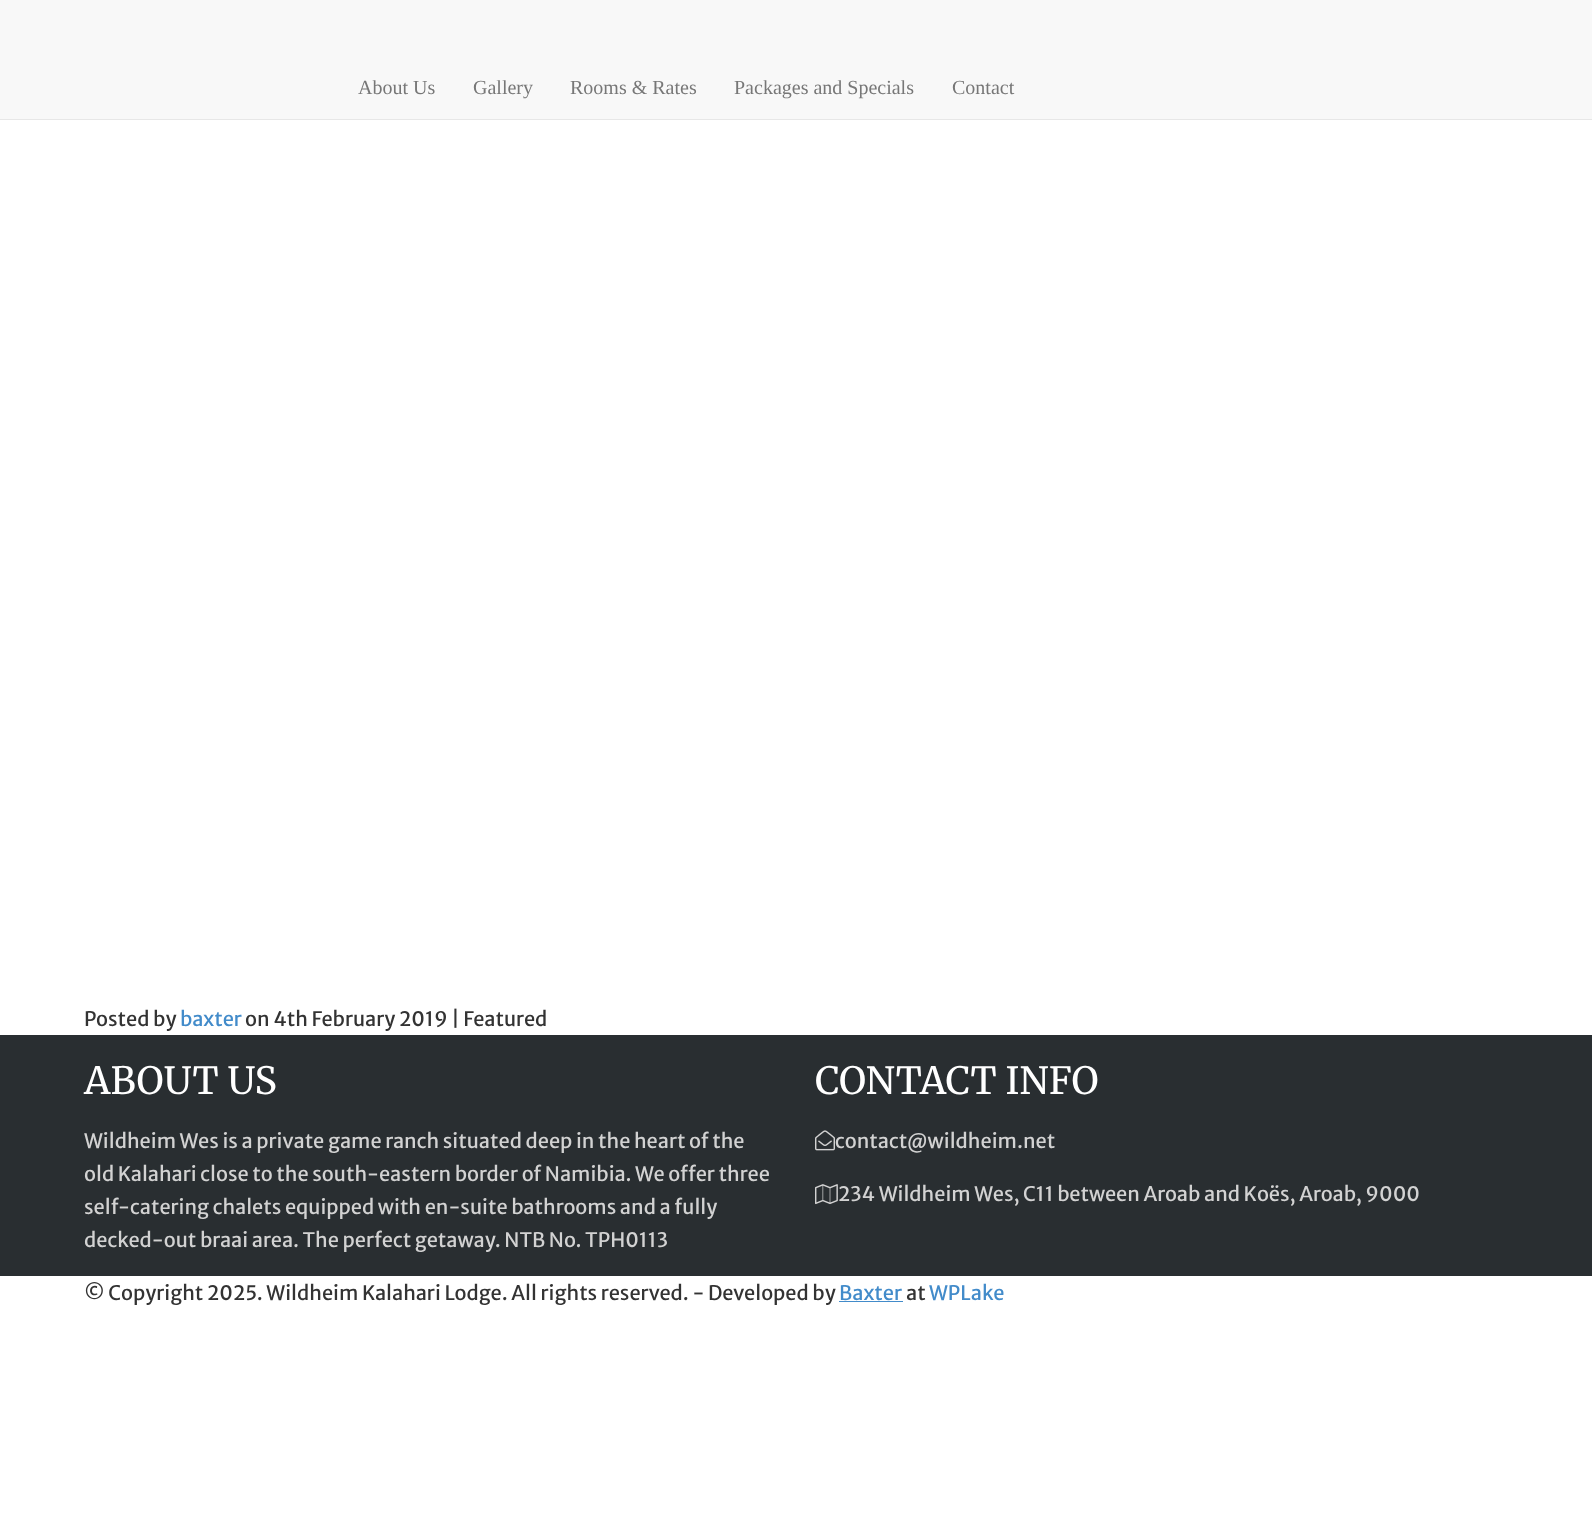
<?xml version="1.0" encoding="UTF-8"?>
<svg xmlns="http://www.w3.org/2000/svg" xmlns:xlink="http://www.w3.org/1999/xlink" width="1592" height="1518">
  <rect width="100%" height="100%" fill="#ffffff" />
  <rect width="1592" height="119" fill="#f8f8f8" />
  <rect y="119" width="1592" height="1" fill="#e7e7e7" />
  <rect y="1035" width="1592" height="241" fill="#292e31" />
  <image x="815" y="1130" width="20" height="21" xlink:href="image1.png" />
  <image x="815" y="1184" width="23" height="21" xlink:href="image2.png" />
  <rect x="839" y="1301" width="64" height="1" fill="#428bca" />
  <text x="358" y="94" style="font-family: Liberation Serif; font-size: 20px; fill: #777777">About Us</text>
  <text x="473" y="94" style="font-family: Liberation Serif; font-size: 20px; fill: #777777">Gallery</text>
  <text x="570" y="94" style="font-family: Liberation Serif; font-size: 20px; fill: #777777">Rooms &amp; Rates</text>
  <text x="734" y="94" style="font-family: Liberation Serif; font-size: 20px; fill: #777777">Packages and Specials</text>
  <text x="952" y="94" style="font-family: Liberation Serif; font-size: 20px; fill: #777777">Contact</text>
  <text x="84" y="1026" style="font-family: Merriweather Sans; font-size: 20px; fill: #333333">Posted by</text>
  <text x="180" y="1026" style="font-family: Merriweather Sans; font-size: 20px; fill: #428bca">baxter</text>
  <text x="245" y="1026" style="font-family: Merriweather Sans; font-size: 20px; fill: #333333">on 4th February 2019 | Featured</text>
  <text x="84" y="1094" style="font-family: Merriweather; font-size: 37.5px; fill: #ffffff">ABOUT US</text>
  <text x="84" y="1148" style="font-family: Merriweather Sans; font-size: 20px; fill: #d2d2d2">Wildheim Wes is a private game ranch situated deep in the heart of the</text>
  <text x="84" y="1181" style="font-family: Merriweather Sans; font-size: 20px; fill: #d2d2d2">old Kalahari close to the south-eastern border of Namibia. We offer three</text>
  <text x="84" y="1214" style="font-family: Merriweather Sans; font-size: 20px; fill: #d2d2d2">self-catering chalets equipped with en-suite bathrooms and a fully</text>
  <text x="84" y="1247" style="font-family: Merriweather Sans; font-size: 20px; fill: #d2d2d2">decked-out braai area. The perfect getaway. NTB No. TPH0113</text>
  <text x="815" y="1094" style="font-family: Merriweather; font-size: 37.5px; fill: #ffffff">CONTACT INFO</text>
  <text x="835" y="1148" style="font-family: Merriweather Sans; font-size: 20px; fill: #d2d2d2">contact@wildheim.net</text>
  <text x="838" y="1201" style="font-family: Merriweather Sans; font-size: 20px; fill: #d2d2d2">234 Wildheim Wes, C11 between Aroab and Koës, Aroab, 9000</text>
  <text x="84" y="1300" style="font-family: Merriweather Sans; font-size: 20px; fill: #333333">© Copyright 2025. Wildheim Kalahari Lodge. All rights reserved. - Developed by</text>
  <text x="839" y="1300" style="font-family: Merriweather Sans; font-size: 20px; fill: #428bca">Baxter</text>
  <text x="906" y="1300" style="font-family: Merriweather Sans; font-size: 20px; fill: #333333">at</text>
  <text x="929" y="1300" style="font-family: Merriweather Sans; font-size: 20px; fill: #428bca">WPLake</text>
</svg>
